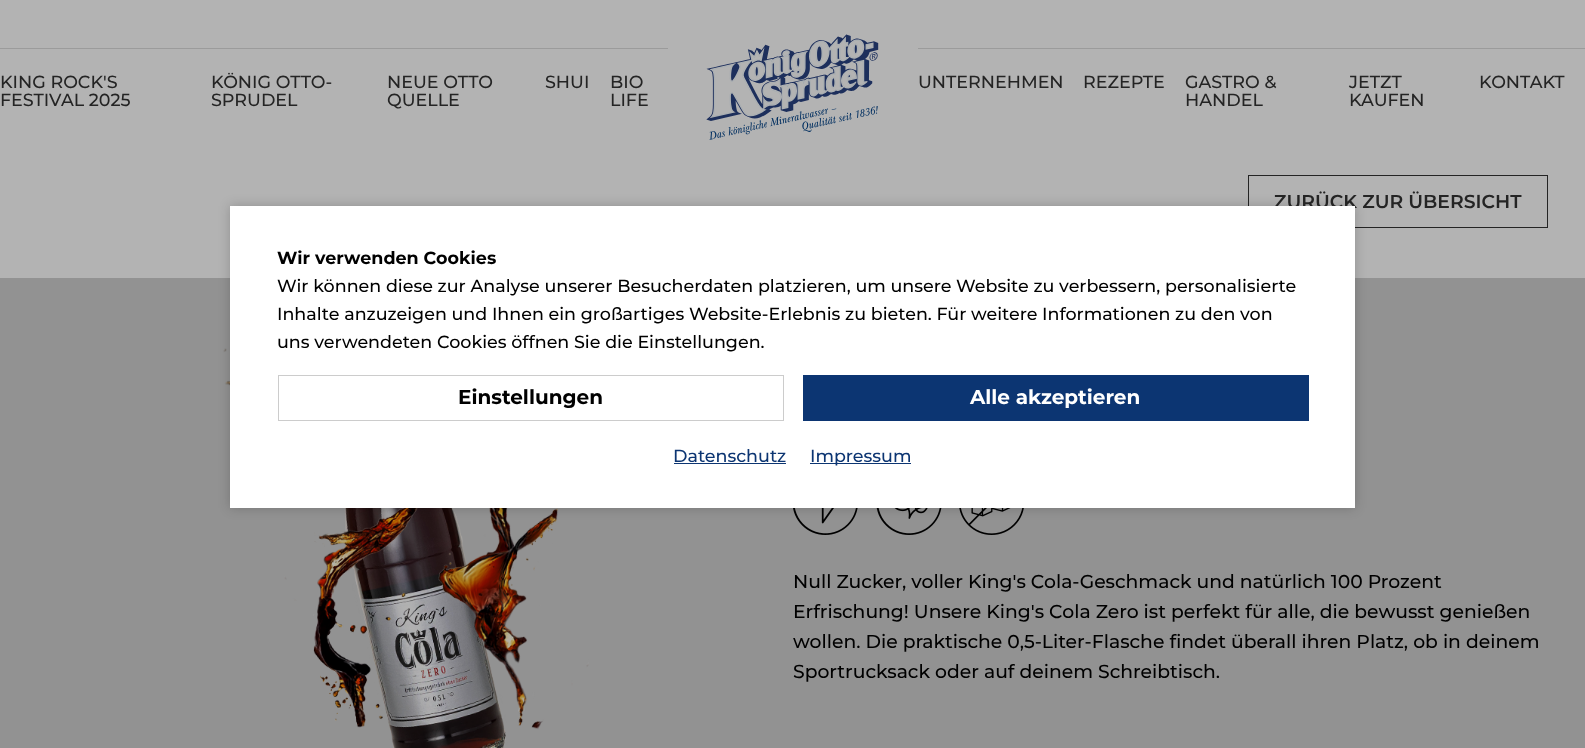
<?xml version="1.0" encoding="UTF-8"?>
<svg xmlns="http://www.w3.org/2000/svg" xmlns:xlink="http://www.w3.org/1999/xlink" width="1585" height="748">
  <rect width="100%" height="100%" fill="#b3b3b3" />
  <rect y="48" width="668" height="1" fill="#9b9b9b" />
  <image x="706" y="34" width="173" height="106" xlink:href="image1.png" />
  <rect x="918" y="48" width="667" height="1" fill="#9b9b9b" />
  <rect x="1248.5" y="175.5" width="299" height="52" fill="none" stroke="#242424" />
  <rect y="278" width="1585" height="470" fill="#929292" />
  <image x="223" y="348" width="7" height="38" xlink:href="image2.png" />
  <image x="284" y="508" width="305" height="240" xlink:href="image3.png" />
  <image x="793" y="508" width="65" height="27" xlink:href="image4.png" />
  <image x="876" y="508" width="66" height="27" xlink:href="image5.png" />
  <image x="959" y="508" width="65" height="27" xlink:href="image6.png" />
  <rect x="230" y="206" width="1125" height="302" fill="#000000" fill-opacity="0.2" filter="blur(6px)" />
  <text x="0" y="88" style="font-family: Montserrat; font-size: 17.5px; font-weight: 100; fill: #242424">KING ROCK'S</text>
  <text x="0" y="106" style="font-family: Montserrat; font-size: 17.5px; font-weight: 100; fill: #242424">FESTIVAL 2025</text>
  <text x="211" y="88" style="font-family: Montserrat; font-size: 17.5px; font-weight: 100; fill: #242424">KÖNIG OTTO-</text>
  <text x="211" y="106" style="font-family: Montserrat; font-size: 17.5px; font-weight: 100; fill: #242424">SPRUDEL</text>
  <text x="387" y="88" style="font-family: Montserrat; font-size: 17.5px; font-weight: 100; fill: #242424">NEUE OTTO</text>
  <text x="387" y="106" style="font-family: Montserrat; font-size: 17.5px; font-weight: 100; fill: #242424">QUELLE</text>
  <text x="545" y="88" style="font-family: Montserrat; font-size: 17.5px; font-weight: 100; fill: #242424">SHUI</text>
  <text x="610" y="88" style="font-family: Montserrat; font-size: 17.5px; font-weight: 100; fill: #242424">BIO</text>
  <text x="610" y="106" style="font-family: Montserrat; font-size: 17.5px; font-weight: 100; fill: #242424">LIFE</text>
  <text x="918" y="88" style="font-family: Montserrat; font-size: 17.5px; font-weight: 100; fill: #242424">UNTERNEHMEN</text>
  <text x="1083" y="88" style="font-family: Montserrat; font-size: 17.5px; font-weight: 100; fill: #242424">REZEPTE</text>
  <text x="1185" y="88" style="font-family: Montserrat; font-size: 17.5px; font-weight: 100; fill: #242424">GASTRO &amp;</text>
  <text x="1185" y="106" style="font-family: Montserrat; font-size: 17.5px; font-weight: 100; fill: #242424">HANDEL</text>
  <text x="1349" y="88" style="font-family: Montserrat; font-size: 17.5px; font-weight: 100; fill: #242424">JETZT</text>
  <text x="1349" y="106" style="font-family: Montserrat; font-size: 17.5px; font-weight: 100; fill: #242424">KAUFEN</text>
  <text x="1479" y="88" style="font-family: Montserrat; font-size: 17.5px; font-weight: 100; fill: #242424">KONTAKT</text>
  <text x="1274" y="208" style="font-family: 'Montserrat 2'; font-size: 18.75px; font-weight: 100; fill: #242424">ZURÜCK ZUR ÜBERSICHT</text>
  <text x="793" y="588" style="font-family: Montserrat; font-size: 18.75px; font-weight: 100; fill: #000000">Null Zucker, voller King's Cola-Geschmack und natürlich 100 Prozent</text>
  <text x="793" y="618" style="font-family: Montserrat; font-size: 18.75px; font-weight: 100; fill: #000000">Erfrischung! Unsere King's Cola Zero ist perfekt für alle, die bewusst genießen</text>
  <text x="793" y="648" style="font-family: Montserrat; font-size: 18.75px; font-weight: 100; fill: #000000">wollen. Die praktische 0,5-Liter-Flasche findet überall ihren Platz, ob in deinem</text>
  <text x="793" y="678" style="font-family: Montserrat; font-size: 18.75px; font-weight: 100; fill: #000000">Sportrucksack oder auf deinem Schreibtisch.</text>
  <rect x="230" y="206" width="1125" height="302" fill="#ffffff" />
  <text x="277" y="264" style="font-family: 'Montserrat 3'; font-size: 17.5px; font-weight: 100; fill: #000000">Wir verwenden Cookies</text>
  <text x="277" y="292" style="font-family: Montserrat; font-size: 17.5px; font-weight: 100; fill: #000000">Wir können diese zur Analyse unserer Besucherdaten platzieren, um unsere Website zu verbessern, personalisierte</text>
  <text x="277" y="320" style="font-family: Montserrat; font-size: 17.5px; font-weight: 100; fill: #000000">Inhalte anzuzeigen und Ihnen ein großartiges Website-Erlebnis zu bieten. Für weitere Informationen zu den von</text>
  <text x="277" y="348" style="font-family: Montserrat; font-size: 17.5px; font-weight: 100; fill: #000000">uns verwendeten Cookies öffnen Sie die Einstellungen.</text>
  <rect x="278.5" y="375.5" width="505" height="45" fill="none" stroke="#cccccc" />
  <text x="458" y="404" style="font-family: 'Montserrat 3'; font-size: 20px; font-weight: 100; fill: #000000">Einstellungen</text>
  <rect x="803" y="375" width="506" height="46" fill="#0c3572" />
  <text x="970" y="404" style="font-family: 'Montserrat 3'; font-size: 20px; font-weight: 100; fill: #ffffff">Alle akzeptieren</text>
  <text x="673" y="462" style="font-family: Montserrat; font-size: 17.5px; font-weight: 100; fill: #0c3572">Datenschutz</text>
  <rect x="674" y="463" width="112" height="1" fill="#0c3572" />
  <rect x="810" y="463" width="101" height="1" fill="#0c3572" />
  <text x="810" y="462" style="font-family: Montserrat; font-size: 17.5px; font-weight: 100; fill: #0c3572">Impressum</text>
</svg>
